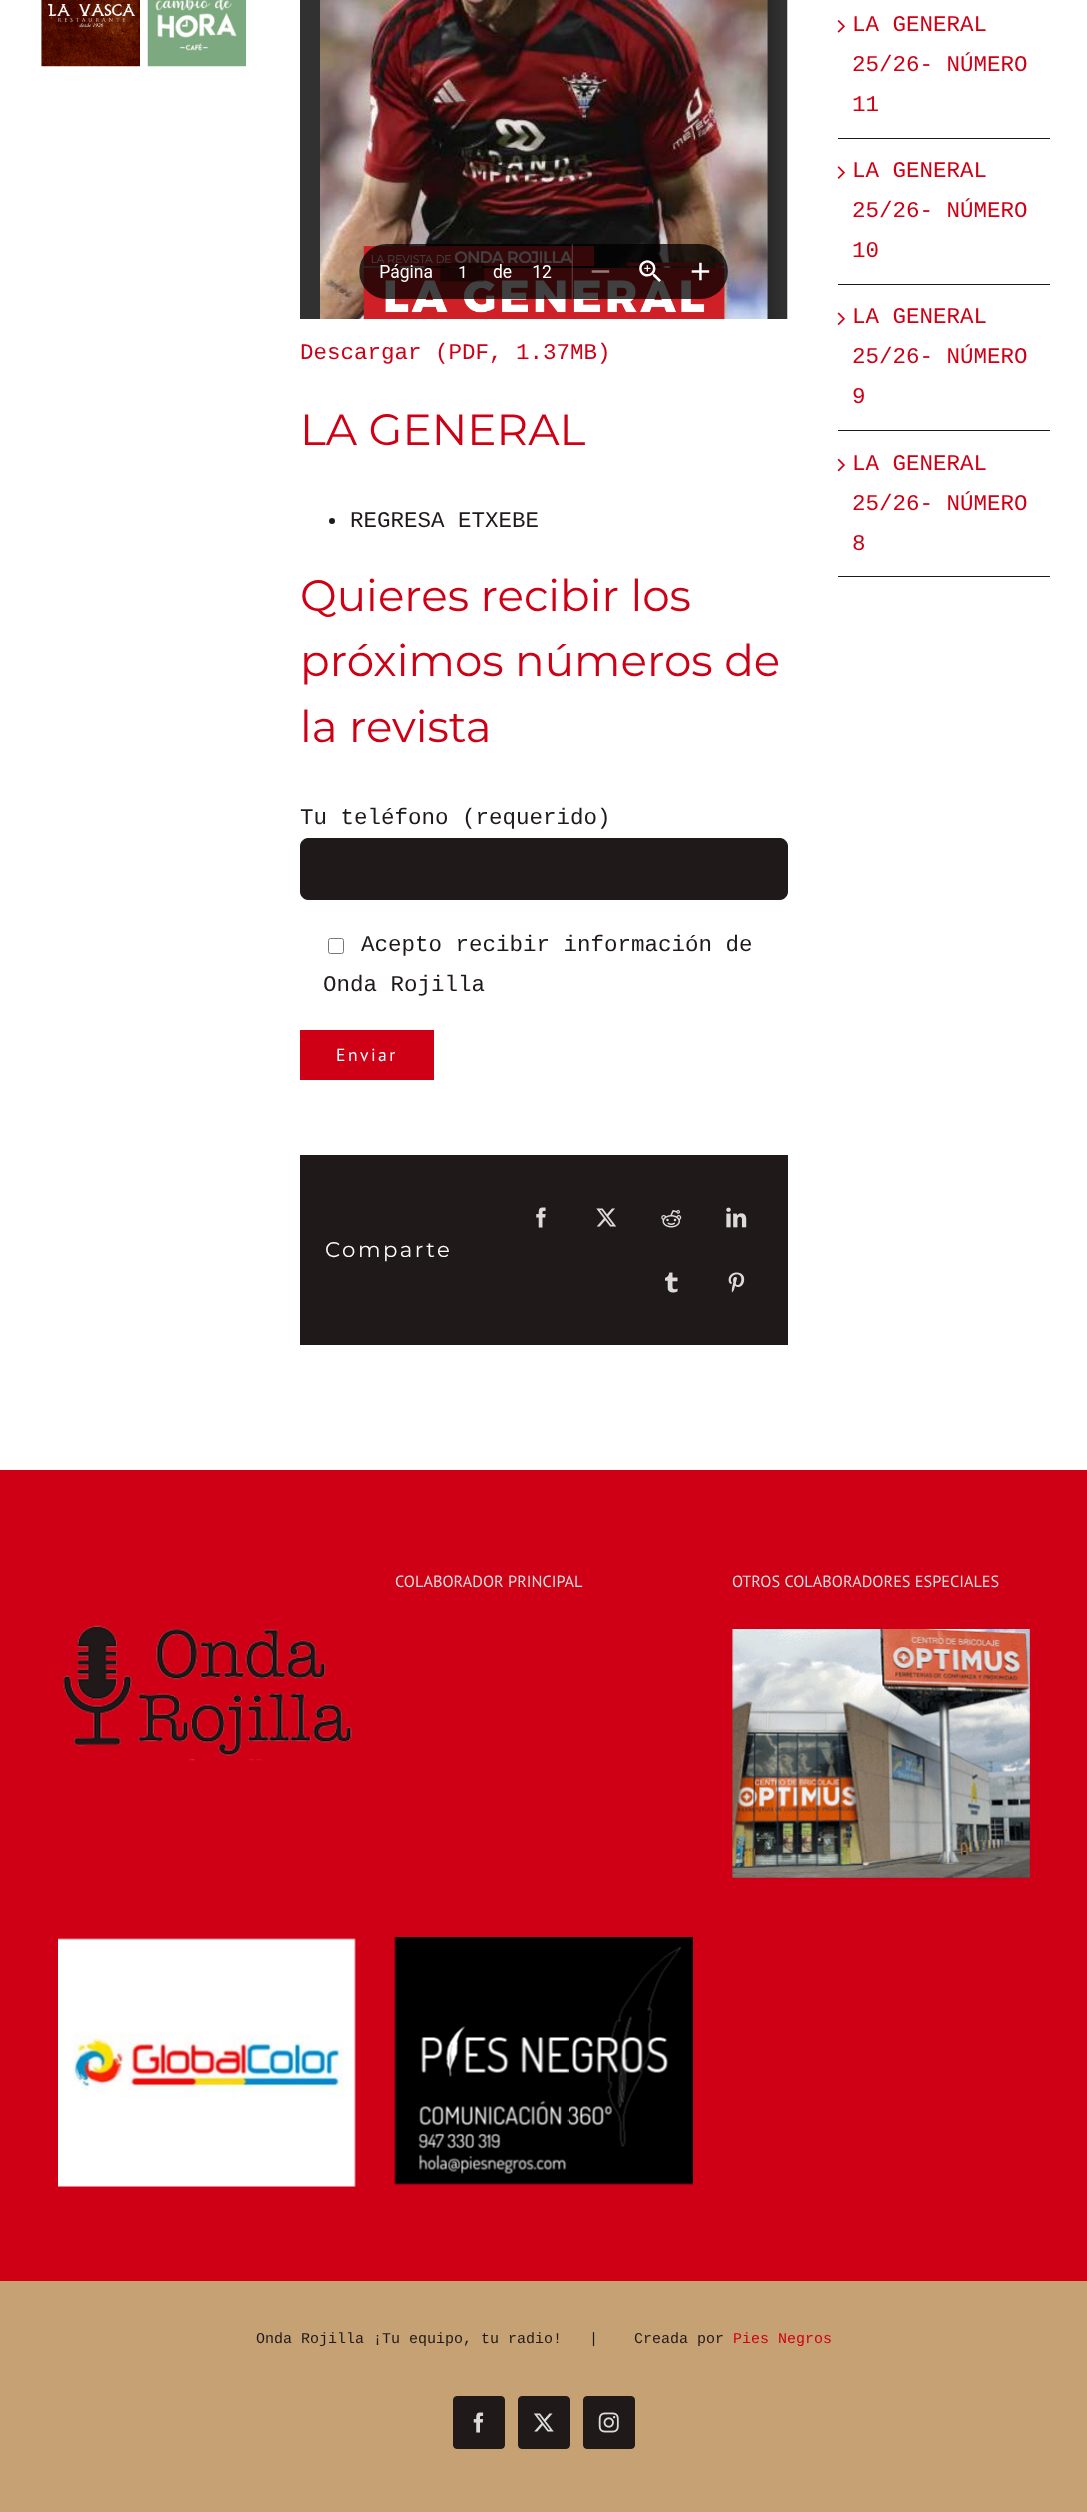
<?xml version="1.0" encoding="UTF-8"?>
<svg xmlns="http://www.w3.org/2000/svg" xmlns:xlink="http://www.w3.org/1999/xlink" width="1087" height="2512">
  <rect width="100%" height="100%" fill="#ffffff" />
  <image x="41" y="0" width="99" height="67" xlink:href="image1.png" />
  <image x="147" y="0" width="100" height="67" xlink:href="image2.png" />
  <rect x="838" y="138" width="212" height="1" fill="#1f191a" />
  <image x="837" y="20" width="8" height="13" xlink:href="image3.png" />
  <rect x="838" y="284" width="212" height="1" fill="#1f191a" />
  <image x="837" y="166" width="8" height="13" xlink:href="image4.png" />
  <rect x="838" y="430" width="212" height="1" fill="#1f191a" />
  <image x="837" y="312" width="8" height="13" xlink:href="image5.png" />
  <rect x="838" y="576" width="212" height="1" fill="#1f191a" />
  <image x="837" y="458" width="8" height="14" xlink:href="image6.png" />
  <image x="300" y="0" width="488" height="319" xlink:href="image7.png" />
  <circle cx="332" cy="521" r="3" fill="#1f191a" />
  <rect x="300.5" y="838.5" width="487" height="61" rx="7.5" fill="#1f191a" stroke="#1f191a" />
  <rect x="328.5" y="938.5" width="15" height="15" rx="2" fill="none" stroke="#767676" />
  <rect x="300" y="1030" width="134" height="50" fill="#cf0015" />
  <rect x="300" y="1155" width="488" height="190" fill="#1f191a" />
  <image x="536" y="1207" width="10" height="21" xlink:href="image8.png" />
  <image x="596" y="1208" width="21" height="19" xlink:href="image9.png" />
  <image x="661" y="1210" width="21" height="18" xlink:href="image10.png" />
  <image x="726" y="1207" width="21" height="21" xlink:href="image11.png" />
  <image x="665" y="1272" width="13" height="21" xlink:href="image12.png" />
  <image x="728" y="1272" width="17" height="21" xlink:href="image13.png" />
  <rect y="1470" width="1087" height="811" fill="#cf0015" />
  <image x="732" y="1629" width="298" height="249" xlink:href="image14.png" />
  <image x="63" y="1625" width="289" height="136" xlink:href="image15.png" />
  <image x="58" y="1938" width="298" height="249" xlink:href="image16.png" />
  <image x="394" y="1937" width="299" height="248" xlink:href="image17.png" />
  <rect y="2281" width="1087" height="231" fill="#c5a173" />
  <rect x="453.5" y="2396.5" width="51" height="52" rx="3.5" fill="#1f191a" stroke="#1f191a" />
  <image x="473" y="2412" width="11" height="21" xlink:href="image18.png" />
  <rect x="518.5" y="2396.5" width="51" height="52" rx="3.5" fill="#1f191a" stroke="#1f191a" />
  <image x="533" y="2413" width="21" height="19" xlink:href="image19.png" />
  <rect x="583.5" y="2396.5" width="51" height="52" rx="3.5" fill="#1f191a" stroke="#1f191a" />
  <image x="598" y="2412" width="21" height="21" xlink:href="image20.png" />
  <text x="852" y="31" style="font-family: Liberation Mono; font-size: 22.5px; fill: #cf0015">LA GENERAL</text>
  <text x="852" y="71" style="font-family: Liberation Mono; font-size: 22.5px; fill: #cf0015">25/26- NÚMERO</text>
  <text x="852" y="111" style="font-family: Liberation Mono; font-size: 22.5px; fill: #cf0015">11</text>
  <text x="852" y="177" style="font-family: Liberation Mono; font-size: 22.5px; fill: #cf0015">LA GENERAL</text>
  <text x="852" y="217" style="font-family: Liberation Mono; font-size: 22.5px; fill: #cf0015">25/26- NÚMERO</text>
  <text x="852" y="257" style="font-family: Liberation Mono; font-size: 22.5px; fill: #cf0015">10</text>
  <text x="852" y="323" style="font-family: Liberation Mono; font-size: 22.5px; fill: #cf0015">LA GENERAL</text>
  <text x="852" y="363" style="font-family: Liberation Mono; font-size: 22.5px; fill: #cf0015">25/26- NÚMERO</text>
  <text x="852" y="403" style="font-family: Liberation Mono; font-size: 22.5px; fill: #cf0015">9</text>
  <text x="852" y="470" style="font-family: Liberation Mono; font-size: 22.5px; fill: #cf0015">LA GENERAL</text>
  <text x="852" y="510" style="font-family: Liberation Mono; font-size: 22.5px; fill: #cf0015">25/26- NÚMERO</text>
  <text x="852" y="550" style="font-family: Liberation Mono; font-size: 22.5px; fill: #cf0015">8</text>
  <text x="300" y="359" style="font-family: Liberation Mono; font-size: 22.5px; fill: #cf0015">Descargar (PDF, 1.37MB)</text>
  <text x="300" y="445" style="font-family: Montserrat; font-size: 43.75px; fill: #cf0015">LA GENERAL</text>
  <text x="350" y="527" style="font-family: Liberation Mono; font-size: 22.5px; fill: #1f191a">REGRESA ETXEBE</text>
  <text x="300" y="611" style="font-family: Montserrat; font-size: 43.75px; fill: #cf0015">Quieres recibir los</text>
  <text x="300" y="676" style="font-family: Montserrat; font-size: 43.75px; fill: #cf0015">próximos números de</text>
  <text x="300" y="742" style="font-family: Montserrat; font-size: 43.75px; fill: #cf0015">la revista</text>
  <text x="300" y="824" style="font-family: Liberation Mono; font-size: 22.5px; fill: #1f191a">Tu teléfono (requerido)</text>
  <text x="361" y="951" style="font-family: Liberation Mono; font-size: 22.5px; fill: #1f191a">Acepto recibir información de</text>
  <text x="323" y="991" style="font-family: Liberation Mono; font-size: 22.5px; fill: #1f191a">Onda Rojilla</text>
  <text x="336" y="1061" style="font-family: PT Sans; font-size: 17.5px; letter-spacing: 2.5px; fill: #ffffff">Enviar</text>
  <text x="325" y="1257" style="font-family: Montserrat; font-size: 21.25px; letter-spacing: 2.5px; fill: #ffffff">Comparte</text>
  <text x="395" y="1587" style="font-family: PT Sans; font-size: 16.25px; fill: #dddddd">COLABORADOR PRINCIPAL</text>
  <text x="732" y="1587" style="font-family: PT Sans; font-size: 16.25px; fill: #dddddd">OTROS COLABORADORES ESPECIALES</text>
  <text x="256" y="2343" style="font-family: Liberation Mono; font-size: 15px; fill: #1f191a" xml:space="preserve">Onda Rojilla ¡Tu equipo, tu radio!   |    Creada por</text>
  <text x="733" y="2343" style="font-family: Liberation Mono; font-size: 15px; fill: #cf0015">Pies Negros</text>
</svg>
